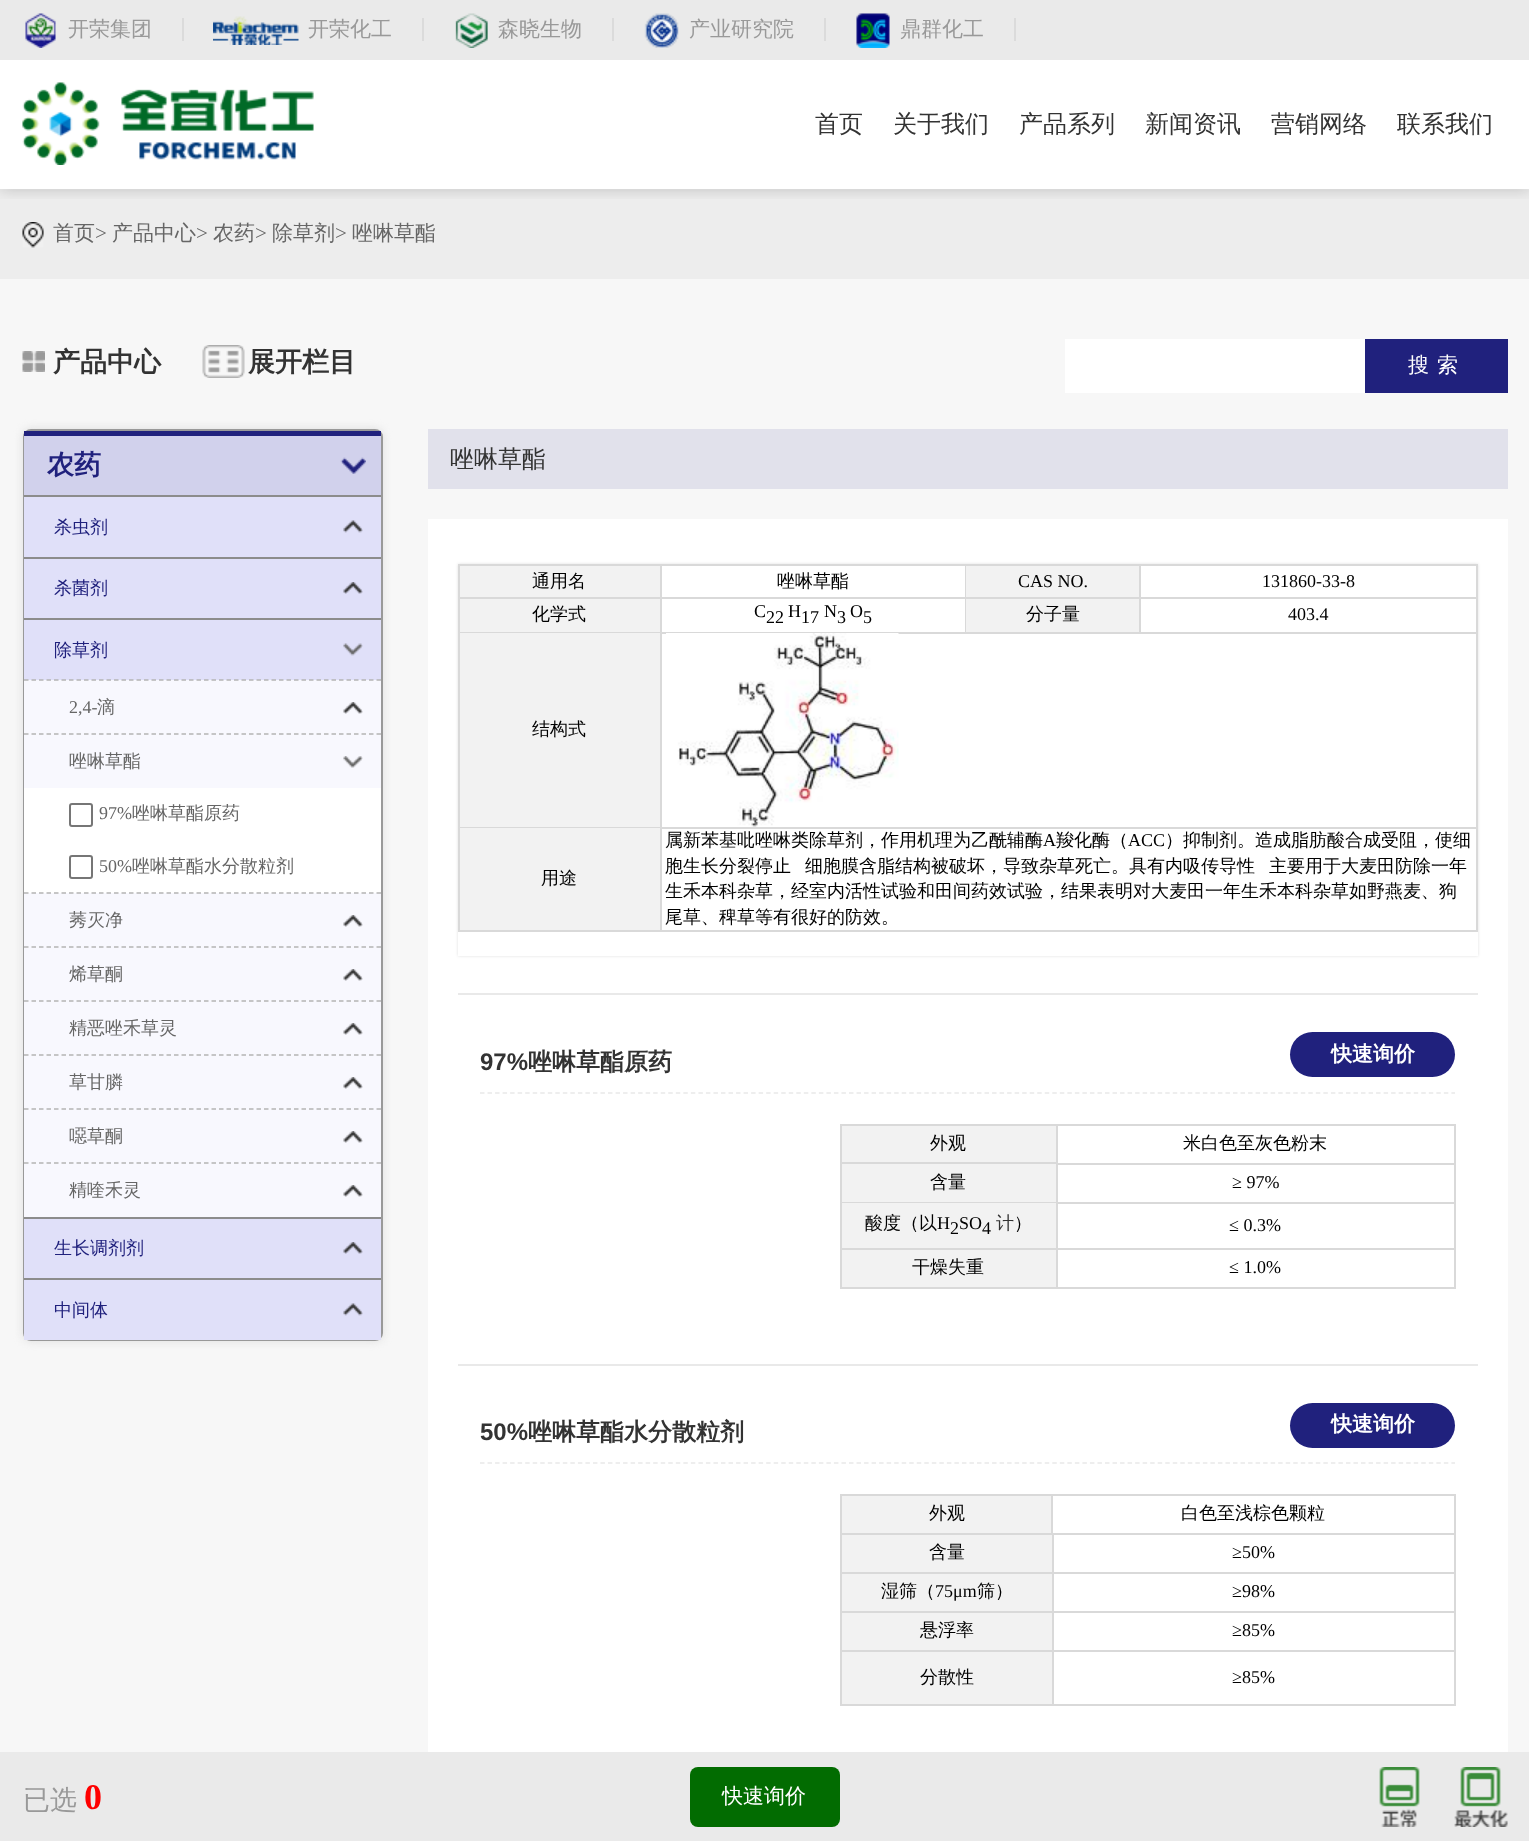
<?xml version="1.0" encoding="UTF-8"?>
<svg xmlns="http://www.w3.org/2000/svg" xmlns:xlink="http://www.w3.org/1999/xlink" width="1529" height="1841">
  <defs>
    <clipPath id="clip1"><rect x="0" y="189" width="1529" height="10" /></clipPath>
    <clipPath id="clip2"><path d="M 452 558 h 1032 v 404 h -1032 z m 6 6 h 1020 v 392 h -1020 z" clip-rule="evenodd" /></clipPath>
  </defs>
  <rect width="100%" height="100%" fill="#ffffff" />
  <rect y="189" width="1529" height="90" fill="#ededed" />
  <g clip-path="url(#clip1)">
    <rect width="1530" height="189" fill="#000000" fill-opacity="0.2" filter="blur(7.5px)" />
  </g>
  <rect y="189" width="1529" height="1" fill="#ffffff" fill-opacity="0.09" />
  <rect width="1529" height="60" fill="#eaeaea" />
  <image x="25" y="13" width="31" height="35" xlink:href="image1.png" />
  <rect x="182" y="18" width="2" height="23" fill="#dbdbdb" />
  <image x="213" y="16" width="86" height="29" xlink:href="image2.png" />
  <rect x="422" y="18" width="2" height="23" fill="#dbdbdb" />
  <image x="455" y="13" width="33" height="35" xlink:href="image3.png" />
  <rect x="612" y="18" width="2" height="23" fill="#dbdbdb" />
  <image x="644" y="13" width="35" height="35" xlink:href="image4.png" />
  <rect x="824" y="18" width="2" height="23" fill="#dbdbdb" />
  <image x="856" y="13" width="34" height="35" xlink:href="image5.png" />
  <rect x="1014" y="18" width="2" height="23" fill="#dbdbdb" />
  <image x="22" y="82" width="292" height="83" xlink:href="image6.png" />
  <rect y="279" width="1529" height="1473" fill="#f7f7f7" />
  <image x="22" y="222" width="22" height="26" xlink:href="image7.png" />
  <image x="22" y="351" width="23" height="21" xlink:href="image8.png" />
  <image x="202" y="345" width="43" height="33" xlink:href="image9.png" />
  <rect x="1065" y="339" width="300" height="54" fill="#ffffff" />
  <rect x="1365" y="339" width="143" height="54" fill="#20217d" />
  <rect x="23" y="429" width="360" height="912" rx="8" fill="#dddddd" filter="blur(4px)" />
  <rect x="24" y="430" width="358" height="910" rx="7" fill="none" stroke="#999999" stroke-width="2" />
  <rect x="24" y="436" width="357" height="59" fill="#d1d1ec" />
  <rect x="24" y="431" width="357" height="5" fill="#20217d" />
  <image x="340" y="457" width="26" height="17" xlink:href="image10.png" />
  <rect x="24" y="497" width="357" height="60" fill="#e0e0f9" />
  <rect x="24" y="495" width="357" height="2" fill="#8c8c8c" />
  <image x="343" y="520" width="20" height="13" xlink:href="image11.png" />
  <rect x="24" y="559" width="357" height="59" fill="#e0e0f9" />
  <rect x="24" y="557" width="357" height="2" fill="#8c8c8c" />
  <image x="343" y="582" width="20" height="12" xlink:href="image12.png" />
  <rect x="24" y="620" width="357" height="60" fill="#e0e0f9" />
  <rect x="24" y="618" width="357" height="2" fill="#8c8c8c" />
  <image x="343" y="643" width="20" height="13" xlink:href="image13.png" />
  <rect x="24" y="680" width="357" height="108" fill="#f8f8fe" />
  <path d="M 24 680 h 357" fill="none" stroke="#b4b4b4" stroke-width="1.5" stroke-dasharray="4.5 3" />
  <image x="343" y="702" width="20" height="12" xlink:href="image14.png" />
  <path d="M 24 734 h 357" fill="none" stroke="#b4b4b4" stroke-width="1.5" stroke-dasharray="4.5 3" />
  <image x="343" y="756" width="20" height="12" xlink:href="image15.png" />
  <rect x="24" y="788" width="357" height="105" fill="#ffffff" />
  <rect x="70" y="804" width="22" height="22" rx="2" fill="none" stroke="#767676" stroke-width="2" />
  <rect x="70" y="856" width="22" height="22" rx="2" fill="none" stroke="#767676" stroke-width="2" />
  <rect x="24" y="893" width="357" height="324" fill="#f8f8fe" />
  <path d="M 24 893 h 357" fill="none" stroke="#b4b4b4" stroke-width="1.5" stroke-dasharray="4.5 3" />
  <image x="343" y="915" width="20" height="12" xlink:href="image14.png" />
  <path d="M 24 947 h 357" fill="none" stroke="#b4b4b4" stroke-width="1.5" stroke-dasharray="4.5 3" />
  <image x="343" y="969" width="20" height="12" xlink:href="image14.png" />
  <path d="M 24 1001 h 357" fill="none" stroke="#b4b4b4" stroke-width="1.5" stroke-dasharray="4.5 3" />
  <image x="343" y="1023" width="20" height="12" xlink:href="image14.png" />
  <path d="M 24 1055 h 357" fill="none" stroke="#b4b4b4" stroke-width="1.5" stroke-dasharray="4.5 3" />
  <image x="343" y="1077" width="20" height="12" xlink:href="image14.png" />
  <path d="M 24 1109 h 357" fill="none" stroke="#b4b4b4" stroke-width="1.5" stroke-dasharray="4.5 3" />
  <image x="343" y="1131" width="20" height="12" xlink:href="image14.png" />
  <path d="M 24 1163 h 357" fill="none" stroke="#b4b4b4" stroke-width="1.5" stroke-dasharray="4.5 3" />
  <image x="343" y="1185" width="20" height="12" xlink:href="image14.png" />
  <rect x="24" y="1219" width="357" height="59" fill="#e0e0f9" />
  <rect x="24" y="1217" width="357" height="2" fill="#8c8c8c" />
  <image x="343" y="1242" width="20" height="12" xlink:href="image12.png" />
  <rect x="24" y="1280" width="357" height="60" fill="#e0e0f9" />
  <rect x="24" y="1278" width="357" height="2" fill="#8c8c8c" />
  <image x="343" y="1303" width="20" height="13" xlink:href="image11.png" />
  <rect x="428" y="429" width="1080" height="60" fill="#e1e1eb" />
  <rect x="428" y="519" width="1080" height="1233" fill="#ffffff" />
  <g clip-path="url(#clip2)">
    <rect x="458" y="564" width="1020" height="392" fill="#dddddd" filter="blur(1.5px)" />
  </g>
  <rect x="459" y="565" width="202" height="33" fill="#f2f2f2" stroke="#d9d9d9" stroke-width="2" />
  <rect x="662" y="564" width="478" height="2" fill="#d9d9d9" />
  <rect x="965" y="564" width="1" height="69" fill="#d9d9d9" />
  <rect x="662" y="597" width="304" height="2" fill="#d9d9d9" />
  <rect x="966" y="566" width="173" height="31" fill="#f2f2f2" />
  <rect x="1139" y="564" width="2" height="69" fill="#d9d9d9" />
  <rect x="966" y="597" width="174" height="2" fill="#d9d9d9" />
  <rect x="1140" y="564" width="338" height="2" fill="#d9d9d9" />
  <rect x="1476" y="564" width="2" height="69" fill="#d9d9d9" />
  <rect x="1140" y="597" width="338" height="2" fill="#d9d9d9" />
  <rect x="460" y="599" width="200" height="33" fill="#f2f2f2" />
  <rect x="660" y="599" width="2" height="333" fill="#d9d9d9" />
  <rect x="458" y="632" width="204" height="1" fill="#d9d9d9" />
  <rect x="458" y="599" width="2" height="34" fill="#d9d9d9" />
  <rect x="662" y="632" width="816" height="2" fill="#d9d9d9" />
  <rect x="966" y="599" width="173" height="33" fill="#f2f2f2" />
  <rect x="460" y="633" width="200" height="194" fill="#f2f2f2" />
  <rect x="458" y="827" width="204" height="1" fill="#d9d9d9" />
  <rect x="458" y="633" width="2" height="195" fill="#d9d9d9" />
  <rect x="1476" y="633" width="2" height="195" fill="#d9d9d9" />
  <rect x="662" y="827" width="816" height="2" fill="#d9d9d9" />
  <image x="666" y="633" width="233" height="194" xlink:href="image16.png" />
  <rect x="460" y="828" width="200" height="102" fill="#f2f2f2" />
  <rect x="458" y="930" width="204" height="2" fill="#d9d9d9" />
  <rect x="458" y="828" width="2" height="104" fill="#d9d9d9" />
  <rect x="1476" y="828" width="2" height="104" fill="#d9d9d9" />
  <rect x="662" y="930" width="816" height="2" fill="#d9d9d9" />
  <rect x="458" y="993" width="1020" height="2" fill="#e9e9e9" />
  <rect x="458" y="1364" width="1020" height="2" fill="#e9e9e9" />
  <path d="M 480 1093 h 975" fill="none" stroke="#e9e9e9" stroke-width="1.5" stroke-dasharray="4.5 3.03" />
  <rect x="1290" y="1032" width="165" height="45" rx="22.5" fill="#20217d" />
  <rect x="841" y="1125" width="216" height="38" fill="#f2f2f2" stroke="#d9d9d9" stroke-width="2" />
  <rect x="1058" y="1124" width="397" height="2" fill="#d9d9d9" />
  <rect x="1454" y="1124" width="2" height="40" fill="#d9d9d9" />
  <rect x="1058" y="1163" width="397" height="2" fill="#d9d9d9" />
  <rect x="842" y="1164" width="214" height="38" fill="#f2f2f2" />
  <rect x="1056" y="1164" width="2" height="125" fill="#d9d9d9" />
  <rect x="840" y="1202" width="218" height="1" fill="#d9d9d9" />
  <rect x="840" y="1164" width="2" height="39" fill="#d9d9d9" />
  <rect x="1454" y="1164" width="2" height="39" fill="#d9d9d9" />
  <rect x="1058" y="1202" width="397" height="2" fill="#d9d9d9" />
  <rect x="842" y="1203" width="214" height="45" fill="#f2f2f2" />
  <rect x="840" y="1248" width="218" height="2" fill="#d9d9d9" />
  <rect x="840" y="1203" width="2" height="47" fill="#d9d9d9" />
  <rect x="1454" y="1203" width="2" height="86" fill="#d9d9d9" />
  <rect x="1058" y="1248" width="397" height="2" fill="#d9d9d9" />
  <rect x="842" y="1250" width="214" height="37" fill="#f2f2f2" />
  <rect x="840" y="1287" width="615" height="2" fill="#d9d9d9" />
  <rect x="840" y="1250" width="2" height="39" fill="#d9d9d9" />
  <path d="M 480 1463 h 975" fill="none" stroke="#e9e9e9" stroke-width="1.5" stroke-dasharray="4.5 3.03" />
  <rect x="1290" y="1403" width="165" height="45" rx="22.5" fill="#20217d" />
  <rect x="841" y="1495" width="211" height="39" fill="#f2f2f2" stroke="#d9d9d9" stroke-width="2" />
  <rect x="1053" y="1494" width="402" height="2" fill="#d9d9d9" />
  <rect x="1454" y="1494" width="2" height="212" fill="#d9d9d9" />
  <rect x="1053" y="1533" width="402" height="2" fill="#d9d9d9" />
  <rect x="842" y="1535" width="210" height="37" fill="#f2f2f2" />
  <rect x="1052" y="1535" width="2" height="171" fill="#d9d9d9" />
  <rect x="840" y="1572" width="615" height="2" fill="#d9d9d9" />
  <rect x="840" y="1535" width="2" height="39" fill="#d9d9d9" />
  <rect x="842" y="1574" width="210" height="37" fill="#f2f2f2" />
  <rect x="840" y="1611" width="615" height="2" fill="#d9d9d9" />
  <rect x="840" y="1574" width="2" height="39" fill="#d9d9d9" />
  <rect x="842" y="1613" width="210" height="37" fill="#f2f2f2" />
  <rect x="840" y="1650" width="615" height="2" fill="#d9d9d9" />
  <rect x="840" y="1613" width="2" height="39" fill="#d9d9d9" />
  <rect x="842" y="1652" width="210" height="52" fill="#f2f2f2" />
  <rect x="840" y="1704" width="615" height="2" fill="#d9d9d9" />
  <rect x="840" y="1652" width="2" height="54" fill="#d9d9d9" />
  <rect y="1752" width="1529" height="89" fill="#eaeaea" />
  <rect x="690" y="1767" width="150" height="60" rx="8" fill="#026c01" />
  <image x="1379" y="1767" width="41" height="60" xlink:href="image17.png" />
  <image x="1454" y="1767" width="54" height="60" xlink:href="image18.png" />
  <text x="68" y="36" style="font-family: WenQuanYi Zen Hei; font-size: 21px; font-weight: 500; fill: #999999">开荣集团</text>
  <text x="308" y="36" style="font-family: WenQuanYi Zen Hei; font-size: 21px; font-weight: 500; fill: #999999">开荣化工</text>
  <text x="498" y="36" style="font-family: WenQuanYi Zen Hei; font-size: 21px; font-weight: 500; fill: #999999">森晓生物</text>
  <text x="689" y="36" style="font-family: WenQuanYi Zen Hei; font-size: 21px; font-weight: 500; fill: #999999">产业研究院</text>
  <text x="900" y="36" style="font-family: WenQuanYi Zen Hei; font-size: 21px; font-weight: 500; fill: #999999">鼎群化工</text>
  <text x="815" y="132" style="font-family: WenQuanYi Zen Hei; font-size: 24px; font-weight: 500; fill: #333333">首页</text>
  <text x="893" y="132" style="font-family: WenQuanYi Zen Hei; font-size: 24px; font-weight: 500; fill: #333333">关于我们</text>
  <text x="1019" y="132" style="font-family: WenQuanYi Zen Hei; font-size: 24px; font-weight: 500; fill: #333333">产品系列</text>
  <text x="1145" y="132" style="font-family: WenQuanYi Zen Hei; font-size: 24px; font-weight: 500; fill: #333333">新闻资讯</text>
  <text x="1271" y="132" style="font-family: WenQuanYi Zen Hei; font-size: 24px; font-weight: 500; fill: #333333">营销网络</text>
  <text x="1397" y="132" style="font-family: WenQuanYi Zen Hei; font-size: 24px; font-weight: 500; fill: #333333">联系我们</text>
  <text x="53" y="240" style="font-family: WenQuanYi Zen Hei; font-size: 21px; font-weight: 500; fill: #666666">首页</text>
  <text x="95" y="240" style="font-family: Liberation Serif; font-size: 21px; fill: #666666">&gt;</text>
  <text x="112" y="240" style="font-family: WenQuanYi Zen Hei; font-size: 21px; font-weight: 500; fill: #666666">产品中心</text>
  <text x="196" y="240" style="font-family: Liberation Serif; font-size: 21px; fill: #666666">&gt;</text>
  <text x="213" y="240" style="font-family: WenQuanYi Zen Hei; font-size: 21px; font-weight: 500; fill: #666666">农药</text>
  <text x="255" y="240" style="font-family: Liberation Serif; font-size: 21px; fill: #666666">&gt;</text>
  <text x="272" y="240" style="font-family: WenQuanYi Zen Hei; font-size: 21px; font-weight: 500; fill: #666666">除草剂</text>
  <text x="335" y="240" style="font-family: Liberation Serif; font-size: 21px; fill: #666666">&gt;</text>
  <text x="352" y="240" style="font-family: WenQuanYi Zen Hei; font-size: 21px; font-weight: 500; fill: #666666">唑啉草酯</text>
  <text x="53" y="371" style="font-family: WenQuanYi Zen Hei; font-size: 27px; font-weight: bold; fill: #333333">产品中心</text>
  <text x="248" y="371" style="font-family: WenQuanYi Zen Hei; font-size: 27px; font-weight: bold; fill: #333333">展开栏目</text>
  <text x="1408" y="372" style="font-family: WenQuanYi Zen Hei; font-size: 21px; font-weight: 500; letter-spacing: 8px; fill: #ffffff">搜索</text>
  <text x="47" y="474" style="font-family: WenQuanYi Zen Hei; font-size: 27px; font-weight: bold; fill: #20217d">农药</text>
  <text x="54" y="533" style="font-family: WenQuanYi Zen Hei; font-size: 18px; font-weight: 500; fill: #20217d">杀虫剂</text>
  <text x="54" y="594" style="font-family: WenQuanYi Zen Hei; font-size: 18px; font-weight: 500; fill: #20217d">杀菌剂</text>
  <text x="54" y="656" style="font-family: WenQuanYi Zen Hei; font-size: 18px; font-weight: 500; fill: #20217d">除草剂</text>
  <text x="69" y="713" style="font-family: Liberation Serif; font-size: 18px; fill: #666666">2,4-</text>
  <text x="97" y="713" style="font-family: WenQuanYi Zen Hei; font-size: 18px; font-weight: 500; fill: #666666">滴</text>
  <text x="69" y="767" style="font-family: WenQuanYi Zen Hei; font-size: 18px; font-weight: 500; fill: #666666">唑啉草酯</text>
  <text x="99" y="819" style="font-family: Liberation Serif; font-size: 18px; fill: #666666">97%</text>
  <text x="132" y="819" style="font-family: WenQuanYi Zen Hei; font-size: 18px; font-weight: 500; fill: #666666">唑啉草酯原药</text>
  <text x="99" y="872" style="font-family: Liberation Serif; font-size: 18px; fill: #666666">50%</text>
  <text x="132" y="872" style="font-family: WenQuanYi Zen Hei; font-size: 18px; font-weight: 500; fill: #666666">唑啉草酯水分散粒剂</text>
  <text x="69" y="926" style="font-family: WenQuanYi Zen Hei; font-size: 18px; font-weight: 500; fill: #666666">莠灭净</text>
  <text x="69" y="980" style="font-family: WenQuanYi Zen Hei; font-size: 18px; font-weight: 500; fill: #666666">烯草酮</text>
  <text x="69" y="1034" style="font-family: WenQuanYi Zen Hei; font-size: 18px; font-weight: 500; fill: #666666">精恶唑禾草灵</text>
  <text x="69" y="1088" style="font-family: WenQuanYi Zen Hei; font-size: 18px; font-weight: 500; fill: #666666">草甘膦</text>
  <text x="69" y="1142" style="font-family: WenQuanYi Zen Hei; font-size: 18px; font-weight: 500; fill: #666666">噁草酮</text>
  <text x="69" y="1196" style="font-family: WenQuanYi Zen Hei; font-size: 18px; font-weight: 500; fill: #666666">精喹禾灵</text>
  <text x="54" y="1254" style="font-family: WenQuanYi Zen Hei; font-size: 18px; font-weight: 500; fill: #20217d">生长调剂剂</text>
  <text x="54" y="1316" style="font-family: WenQuanYi Zen Hei; font-size: 18px; font-weight: 500; fill: #20217d">中间体</text>
  <text x="450" y="467" style="font-family: WenQuanYi Zen Hei; font-size: 24px; font-weight: 500; fill: #333333">唑啉草酯</text>
  <text x="532" y="587" style="font-family: WenQuanYi Zen Hei; font-size: 18px; font-weight: 500; fill: #000000">通用名</text>
  <text x="777" y="587" style="font-family: WenQuanYi Zen Hei; font-size: 18px; font-weight: 500; fill: #000000">唑啉草酯</text>
  <text x="1018" y="587" style="font-family: Liberation Serif; font-size: 18px; fill: #000000">CAS NO.</text>
  <text x="1262" y="587" style="font-family: Liberation Serif; font-size: 18px; fill: #000000">131860-33-8</text>
  <text x="532" y="620" style="font-family: WenQuanYi Zen Hei; font-size: 18px; font-weight: 500; fill: #000000">化学式</text>
  <text x="754" y="617" style="font-family: Liberation Serif; font-size: 18px; fill: #000000">C</text>
  <text x="766" y="623" style="font-family: Liberation Serif; font-size: 18px; fill: #000000">22</text>
  <text x="788" y="617" style="font-family: Liberation Serif; font-size: 18px; fill: #000000">H</text>
  <text x="801" y="623" style="font-family: Liberation Serif; font-size: 18px; fill: #000000">17</text>
  <text x="824" y="617" style="font-family: Liberation Serif; font-size: 18px; fill: #000000">N</text>
  <text x="837" y="623" style="font-family: Liberation Serif; font-size: 18px; fill: #000000">3</text>
  <text x="850" y="617" style="font-family: Liberation Serif; font-size: 18px; fill: #000000">O</text>
  <text x="863" y="623" style="font-family: Liberation Serif; font-size: 18px; fill: #000000">5</text>
  <text x="1026" y="620" style="font-family: WenQuanYi Zen Hei; font-size: 18px; font-weight: 500; fill: #000000">分子量</text>
  <text x="1288" y="620" style="font-family: Liberation Serif; font-size: 18px; fill: #000000">403.4</text>
  <text x="532" y="735" style="font-family: WenQuanYi Zen Hei; font-size: 18px; font-weight: 500; fill: #000000">结构式</text>
  <text x="541" y="884" style="font-family: WenQuanYi Zen Hei; font-size: 18px; font-weight: 500; fill: #000000">用途</text>
  <text x="665" y="846" style="font-family: WenQuanYi Zen Hei; font-size: 18px; font-weight: 500; fill: #000000">属新苯基吡唑啉类除草剂，作用机理为乙酰辅酶</text>
  <text x="1043" y="846" style="font-family: Liberation Serif; font-size: 18px; fill: #000000">A</text>
  <text x="1056" y="846" style="font-family: WenQuanYi Zen Hei; font-size: 18px; font-weight: 500; fill: #000000">羧化酶（</text>
  <text x="1128" y="846" style="font-family: Liberation Serif; font-size: 18px; fill: #000000">ACC</text>
  <text x="1165" y="846" style="font-family: WenQuanYi Zen Hei; font-size: 18px; font-weight: 500; fill: #000000">）抑制剂。造成脂肪酸合成受阻，使细</text>
  <text x="665" y="872" style="font-family: WenQuanYi Zen Hei; font-size: 18px; font-weight: 500; fill: #000000">胞生长分裂停止</text>
  <text x="805" y="872" style="font-family: WenQuanYi Zen Hei; font-size: 18px; font-weight: 500; fill: #000000">细胞膜含脂结构被破坏，导致杂草死亡。具有内吸传导性</text>
  <text x="1269" y="872" style="font-family: WenQuanYi Zen Hei; font-size: 18px; font-weight: 500; fill: #000000">主要用于大麦田防除一年</text>
  <text x="665" y="897" style="font-family: WenQuanYi Zen Hei; font-size: 18px; font-weight: 500; fill: #000000">生禾本科杂草，经室内活性试验和田间药效试验，结果表明对大麦田一年生禾本科杂草如野燕麦、狗</text>
  <text x="665" y="923" style="font-family: WenQuanYi Zen Hei; font-size: 18px; font-weight: 500; fill: #000000">尾草、稗草等有很好的防效。</text>
  <text x="480" y="1070" style="font-family: Liberation Sans; font-size: 24px; font-weight: bold; fill: #333333">97%</text>
  <text x="528" y="1070" style="font-family: WenQuanYi Zen Hei; font-size: 24px; font-weight: bold; fill: #333333">唑啉草酯原药</text>
  <text x="1331" y="1061" style="font-family: WenQuanYi Zen Hei; font-size: 21px; font-weight: bold; fill: #ffffff">快速询价</text>
  <text x="930" y="1149" style="font-family: WenQuanYi Zen Hei; font-size: 18px; font-weight: 500; fill: #000000">外观</text>
  <text x="1183" y="1149" style="font-family: WenQuanYi Zen Hei; font-size: 18px; font-weight: 500; fill: #000000">米白色至灰色粉末</text>
  <text x="930" y="1188" style="font-family: WenQuanYi Zen Hei; font-size: 18px; font-weight: 500; fill: #000000">含量</text>
  <text x="1232" y="1188" style="font-family: Liberation Serif; font-size: 18px; fill: #000000">≥ 97%</text>
  <text x="865" y="1229" style="font-family: WenQuanYi Zen Hei; font-size: 18px; font-weight: 500; fill: #000000">酸度（以</text>
  <text x="937" y="1229" style="font-family: Liberation Serif; font-size: 18px; fill: #000000">H</text>
  <text x="950" y="1234" style="font-family: Liberation Serif; font-size: 18px; fill: #000000">2</text>
  <text x="959" y="1229" style="font-family: Liberation Serif; font-size: 18px; fill: #000000">SO</text>
  <text x="982" y="1234" style="font-family: Liberation Serif; font-size: 18px; fill: #000000">4</text>
  <text x="996" y="1229" style="font-family: WenQuanYi Zen Hei; font-size: 18px; font-weight: 500; fill: #333333">计</text>
  <text x="1014" y="1229" style="font-family: WenQuanYi Zen Hei; font-size: 18px; font-weight: 500; fill: #000000">）</text>
  <text x="1229" y="1231" style="font-family: Liberation Serif; font-size: 18px; fill: #000000">≤ 0.3%</text>
  <text x="912" y="1273" style="font-family: WenQuanYi Zen Hei; font-size: 18px; font-weight: 500; fill: #000000">干燥失重</text>
  <text x="1229" y="1273" style="font-family: Liberation Serif; font-size: 18px; fill: #000000">≤ 1.0%</text>
  <text x="480" y="1440" style="font-family: Liberation Sans; font-size: 24px; font-weight: bold; fill: #333333">50%</text>
  <text x="528" y="1440" style="font-family: WenQuanYi Zen Hei; font-size: 24px; font-weight: bold; fill: #333333">唑啉草酯水分散粒剂</text>
  <text x="1331" y="1431" style="font-family: WenQuanYi Zen Hei; font-size: 21px; font-weight: bold; fill: #ffffff">快速询价</text>
  <text x="929" y="1519" style="font-family: WenQuanYi Zen Hei; font-size: 18px; font-weight: 500; fill: #000000">外观</text>
  <text x="1181" y="1519" style="font-family: WenQuanYi Zen Hei; font-size: 18px; font-weight: 500; fill: #000000">白色至浅棕色颗粒</text>
  <text x="929" y="1558" style="font-family: WenQuanYi Zen Hei; font-size: 18px; font-weight: 500; fill: #000000">含量</text>
  <text x="1232" y="1558" style="font-family: Liberation Serif; font-size: 18px; fill: #000000">≥50%</text>
  <text x="881" y="1597" style="font-family: WenQuanYi Zen Hei; font-size: 18px; font-weight: 500; fill: #000000">湿筛（</text>
  <text x="935" y="1597" style="font-family: Liberation Serif; font-size: 18px; fill: #000000">75μm</text>
  <text x="977" y="1597" style="font-family: WenQuanYi Zen Hei; font-size: 18px; font-weight: 500; fill: #000000">筛）</text>
  <text x="1232" y="1597" style="font-family: Liberation Serif; font-size: 18px; fill: #000000">≥98%</text>
  <text x="920" y="1636" style="font-family: WenQuanYi Zen Hei; font-size: 18px; font-weight: 500; fill: #000000">悬浮率</text>
  <text x="1232" y="1636" style="font-family: Liberation Serif; font-size: 18px; fill: #000000">≥85%</text>
  <text x="920" y="1683" style="font-family: WenQuanYi Zen Hei; font-size: 18px; font-weight: 500; fill: #000000">分散性</text>
  <text x="1232" y="1683" style="font-family: Liberation Serif; font-size: 18px; fill: #000000">≥85%</text>
  <text x="23" y="1809" style="font-family: WenQuanYi Zen Hei; font-size: 27px; font-weight: 500; fill: #999999">已选</text>
  <text x="84" y="1809" style="font-family: Liberation Serif; font-size: 36px; font-weight: bold; fill: #ff0000">0</text>
  <text x="722" y="1803" style="font-family: WenQuanYi Zen Hei; font-size: 21px; font-weight: 500; fill: #ffffff">快速询价</text>
</svg>
